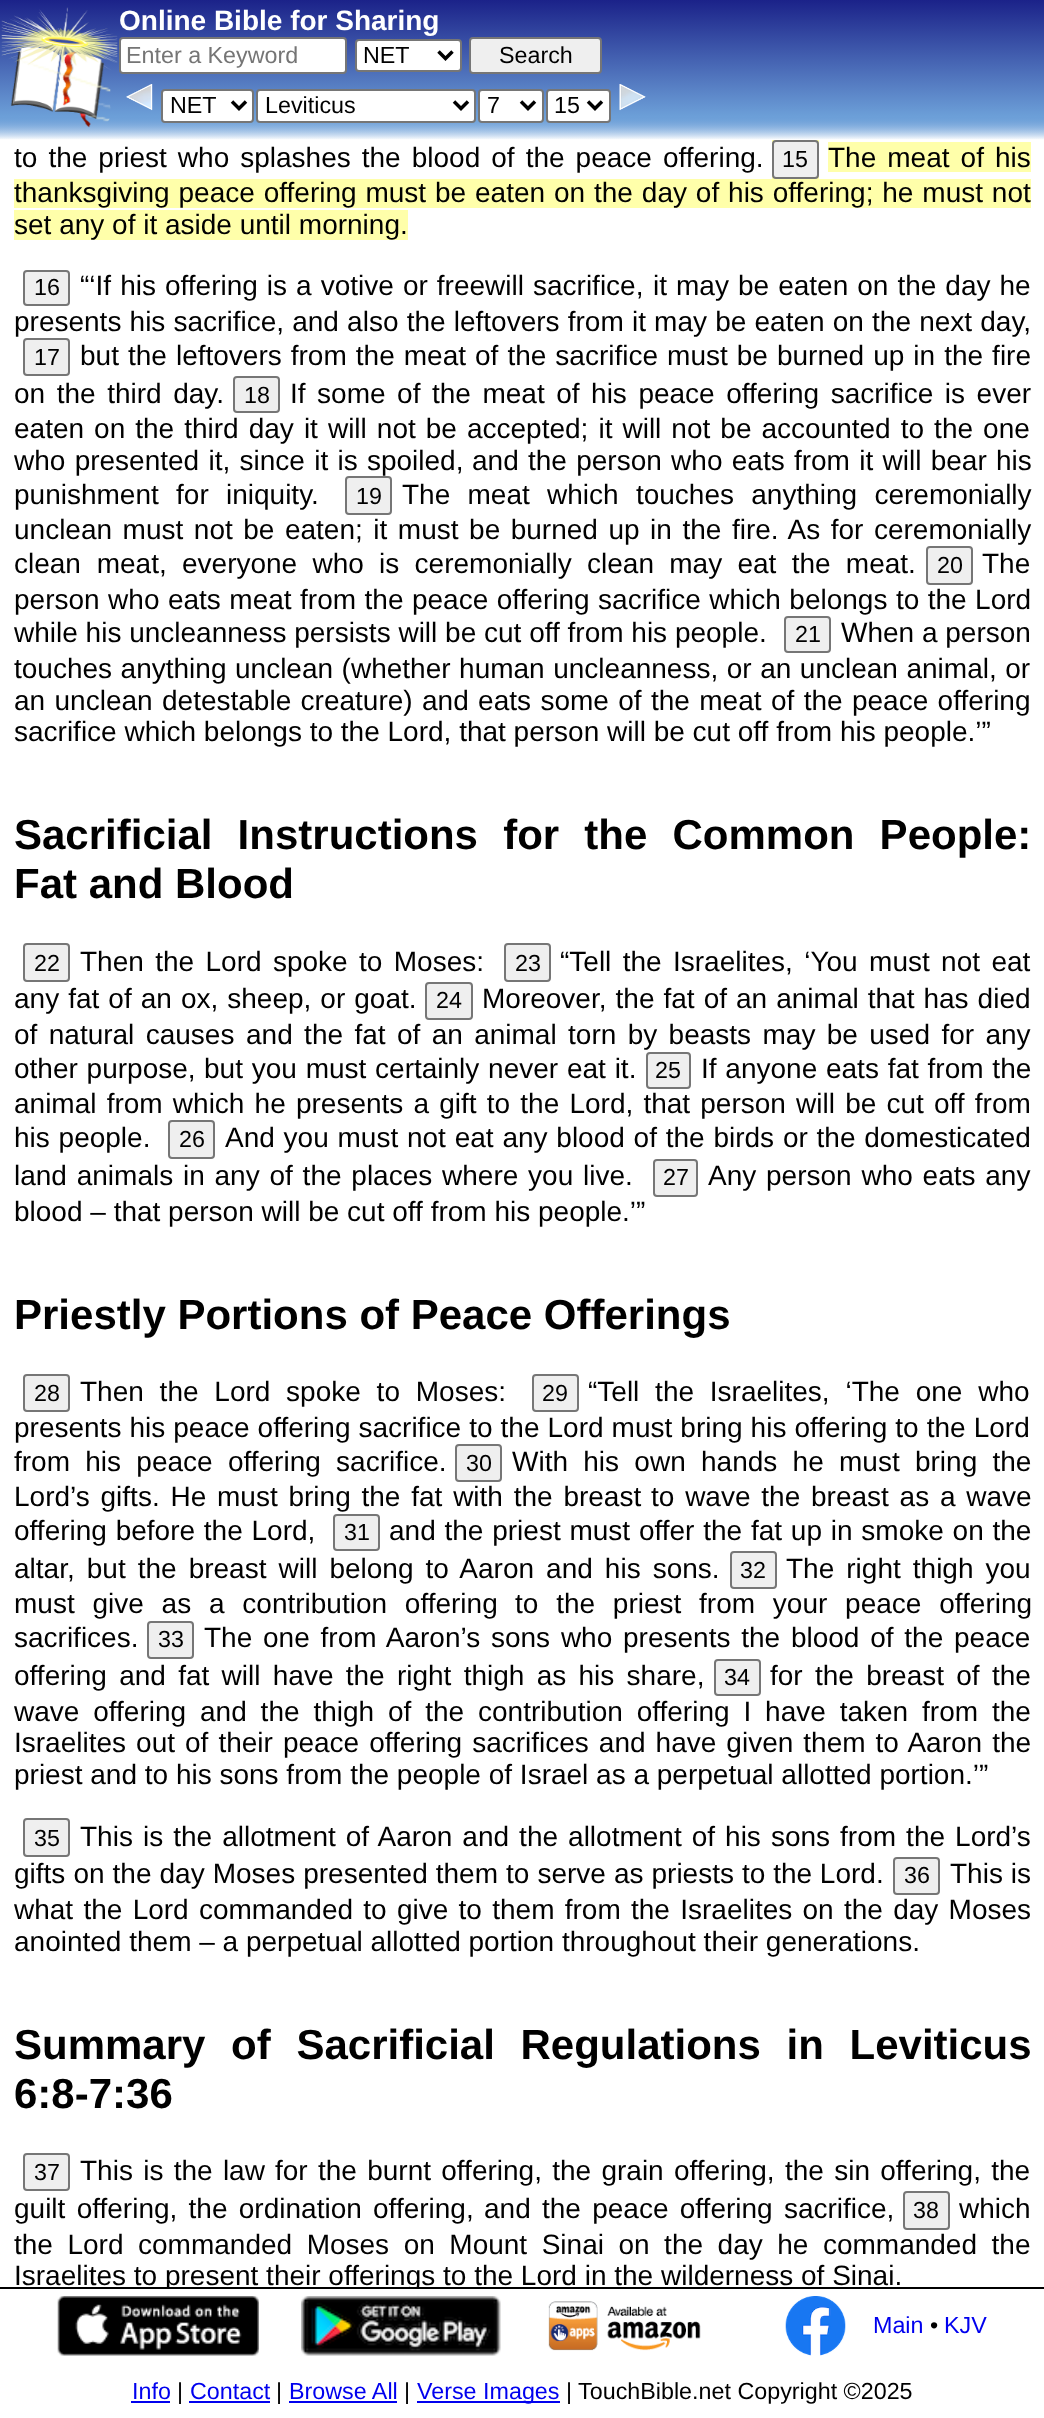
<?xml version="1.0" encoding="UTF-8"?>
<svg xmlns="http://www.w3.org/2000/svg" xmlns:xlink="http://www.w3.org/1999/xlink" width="1044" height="2418">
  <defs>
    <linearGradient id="g1" gradientUnits="userSpaceOnUse" x1="522" y1="0" x2="522" y2="140"><stop offset="0" stop-color="#1b2289" /><stop offset="0.83" stop-color="#6c9fd8" /><stop offset="1" stop-color="#ffffff" /></linearGradient>
    <linearGradient id="g2" gradientUnits="userSpaceOnUse" x1="522" y1="0" x2="522" y2="140"><stop offset="0" stop-color="#1b2289" /><stop offset="0.83" stop-color="#6c9fd8" /><stop offset="1" stop-color="#6c9fd8" stop-opacity="0" /></linearGradient>
    <clipPath id="clip1"><rect y="140" width="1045" height="2147" /></clipPath>
  </defs>
  <rect width="100%" height="100%" fill="#ffffff" />
  <rect y="116" width="1044" height="24" fill="url(#g1)" />
  <rect width="1044" height="139" fill="url(#g2)" />
  <image x="1" y="7" width="117" height="121" xlink:href="image1.png" />
  <image x="10" y="56" width="101" height="66" xlink:href="image2.png" />
  <rect x="120" y="38" width="226" height="35" rx="3" fill="#ffffff" stroke="#767676" stroke-width="2" />
  <rect x="356" y="40" width="105" height="31" rx="3" fill="#ffffff" stroke="#767676" stroke-width="2" />
  <path d="M 438.5 51.5 l 7 7 l 7 -7" fill="none" stroke="#000000" stroke-width="3.5" />
  <rect x="470" y="38" width="131" height="35" rx="3" fill="#efefef" stroke="#767676" stroke-width="2" />
  <image x="126" y="84" width="27" height="27" xlink:href="image3.png" />
  <rect x="162" y="90" width="91" height="32" rx="3" fill="#ffffff" stroke="#767676" stroke-width="2" />
  <path d="M 232 101.5 l 7 7 l 7 -7" fill="none" stroke="#000000" stroke-width="3.5" />
  <rect x="257" y="90" width="218" height="32" rx="3" fill="#ffffff" stroke="#767676" stroke-width="2" />
  <path d="M 454 101.5 l 7 7 l 7 -7" fill="none" stroke="#000000" stroke-width="3.5" />
  <rect x="479" y="90" width="64" height="32" rx="3" fill="#ffffff" stroke="#767676" stroke-width="2" />
  <path d="M 521 101.5 l 7 7 l 7 -7" fill="none" stroke="#000000" stroke-width="3.5" />
  <rect x="547" y="90" width="63" height="32" rx="3" fill="#ffffff" stroke="#767676" stroke-width="2" />
  <path d="M 588 101.5 l 7 7 l 7 -7" fill="none" stroke="#000000" stroke-width="3.5" />
  <image x="619" y="84" width="27" height="27" xlink:href="image4.png" />
  <rect y="2287" width="1044" height="2" fill="#000000" />
  <rect x="772" y="140" width="47" height="39" fill="#ffffaa" />
  <rect x="828" y="142" width="203" height="30" fill="#ffffaa" />
  <rect x="14" y="179" width="1017" height="29" fill="#ffffaa" />
  <rect x="14" y="210" width="394" height="30" fill="#ffffaa" />
  <rect x="773" y="141" width="45" height="37" rx="3" fill="#efefef" stroke="#767676" stroke-width="2" />
  <rect x="24" y="271" width="45" height="34" rx="3" fill="#efefef" stroke="#767676" stroke-width="2" />
  <rect x="24" y="339" width="45" height="36" rx="3" fill="#efefef" stroke="#767676" stroke-width="2" />
  <rect x="234" y="377" width="45" height="35" rx="3" fill="#efefef" stroke="#767676" stroke-width="2" />
  <rect x="346" y="477" width="45" height="37" rx="3" fill="#efefef" stroke="#767676" stroke-width="2" />
  <rect x="927" y="547" width="45" height="37" rx="3" fill="#efefef" stroke="#767676" stroke-width="2" />
  <rect x="785" y="617" width="45" height="35" rx="3" fill="#efefef" stroke="#767676" stroke-width="2" />
  <rect x="505" y="944" width="45" height="37" rx="3" fill="#efefef" stroke="#767676" stroke-width="2" />
  <rect x="24" y="944" width="45" height="37" rx="3" fill="#efefef" stroke="#767676" stroke-width="2" />
  <rect x="426" y="983" width="46" height="36" rx="3" fill="#efefef" stroke="#767676" stroke-width="2" />
  <rect x="647" y="1053" width="43" height="35" rx="3" fill="#efefef" stroke="#767676" stroke-width="2" />
  <rect x="169" y="1121" width="45" height="37" rx="3" fill="#efefef" stroke="#767676" stroke-width="2" />
  <rect x="654" y="1160" width="43" height="36" rx="3" fill="#efefef" stroke="#767676" stroke-width="2" />
  <rect x="533" y="1375" width="45" height="36" rx="3" fill="#efefef" stroke="#767676" stroke-width="2" />
  <rect x="24" y="1375" width="45" height="36" rx="3" fill="#efefef" stroke="#767676" stroke-width="2" />
  <rect x="456" y="1445" width="45" height="36" rx="3" fill="#efefef" stroke="#767676" stroke-width="2" />
  <rect x="334" y="1515" width="45" height="35" rx="3" fill="#efefef" stroke="#767676" stroke-width="2" />
  <rect x="731" y="1552" width="45" height="36" rx="3" fill="#efefef" stroke="#767676" stroke-width="2" />
  <rect x="148" y="1622" width="45" height="36" rx="3" fill="#efefef" stroke="#767676" stroke-width="2" />
  <rect x="715" y="1660" width="45" height="35" rx="3" fill="#efefef" stroke="#767676" stroke-width="2" />
  <rect x="24" y="1819" width="45" height="37" rx="3" fill="#efefef" stroke="#767676" stroke-width="2" />
  <rect x="894" y="1858" width="45" height="36" rx="3" fill="#efefef" stroke="#767676" stroke-width="2" />
  <rect x="24" y="2154" width="45" height="36" rx="3" fill="#efefef" stroke="#767676" stroke-width="2" />
  <rect x="904" y="2192" width="45" height="37" rx="3" fill="#efefef" stroke="#767676" stroke-width="2" />
  <image x="57" y="2296" width="202" height="60" xlink:href="image5.png" />
  <image x="301" y="2296" width="200" height="60" xlink:href="image6.png" />
  <image x="548" y="2301" width="153" height="50" xlink:href="image7.png" />
  <image x="785" y="2296" width="61" height="60" xlink:href="image8.png" />
  <rect x="131" y="2401" width="39" height="2" fill="#0000ee" />
  <rect x="189" y="2401" width="81" height="2" fill="#0000ee" />
  <rect x="289" y="2401" width="108" height="2" fill="#0000ee" />
  <rect x="417" y="2401" width="143" height="2" fill="#0000ee" />
  <text x="119" y="30" style="font-family: Liberation Sans; font-size: 28px; font-weight: bold; fill: #ffffff">Online Bible for Sharing</text>
  <text x="126" y="63" style="font-family: Liberation Sans; font-size: 23.3px; fill: #757575">Enter a Keyword</text>
  <text x="363" y="63" style="font-family: Liberation Sans; font-size: 23.3px; fill: #000000">NET</text>
  <text x="499" y="63" style="font-family: Liberation Sans; font-size: 23.3px; fill: #000000">Search</text>
  <text x="170" y="113" style="font-family: Liberation Sans; font-size: 23.3px; fill: #000000">NET</text>
  <text x="265" y="113" style="font-family: Liberation Sans; font-size: 23.3px; fill: #000000">Leviticus</text>
  <text x="487" y="113" style="font-family: Liberation Sans; font-size: 23.3px; fill: #000000">7</text>
  <text x="554" y="113" style="font-family: Liberation Sans; font-size: 23.3px; fill: #000000">15</text>
  <text x="14" y="167" word-spacing="3.25" style="font-family: Liberation Sans; font-size: 28px; fill: #000000">to the priest who splashes the blood of the peace offering.</text>
  <text x="782" y="167" style="font-family: Liberation Sans; font-size: 23.3px; fill: #000000">15</text>
  <text x="828" y="167" word-spacing="3.25" style="font-family: Liberation Sans; font-size: 28px; fill: #000000">The meat of his</text>
  <text x="14" y="202" word-spacing="1.1" style="font-family: Liberation Sans; font-size: 28px; fill: #000000">thanksgiving peace offering must be eaten on the day of his offering; he must not</text>
  <text x="14" y="234" style="font-family: Liberation Sans; font-size: 28px; fill: #000000">set any of it aside until morning.</text>
  <text x="34" y="295" style="font-family: Liberation Sans; font-size: 23.3px; fill: #000000">16</text>
  <text x="80" y="295" word-spacing="1.25" style="font-family: Liberation Sans; font-size: 28px; fill: #000000">“‘If his offering is a votive or freewill sacrifice,</text>
  <text x="653" y="295" word-spacing="1.25" style="font-family: Liberation Sans; font-size: 28px; fill: #000000">it may be eaten on the day he</text>
  <text x="14" y="331" word-spacing="0.4" style="font-family: Liberation Sans; font-size: 28px; fill: #000000">presents his sacrifice, and also the leftovers from it may be eaten on the next day,</text>
  <text x="34" y="365" style="font-family: Liberation Sans; font-size: 23.3px; fill: #000000">17</text>
  <text x="80" y="365" word-spacing="1.25" style="font-family: Liberation Sans; font-size: 28px; fill: #000000">but the leftovers from the meat of the sacrifice must be burned up in the fire</text>
  <text x="14" y="403" word-spacing="3.75" style="font-family: Liberation Sans; font-size: 28px; fill: #000000">on the third day.</text>
  <text x="244" y="403" style="font-family: Liberation Sans; font-size: 23.3px; fill: #000000">18</text>
  <text x="290" y="403" word-spacing="3.75" style="font-family: Liberation Sans; font-size: 28px; fill: #000000">If some of the meat of his peace offering sacrifice is ever</text>
  <text x="14" y="438" word-spacing="2.25" style="font-family: Liberation Sans; font-size: 28px; fill: #000000">eaten on the third day it will not be accepted; it will not be accounted to the one</text>
  <text x="14" y="470" word-spacing="1.5" style="font-family: Liberation Sans; font-size: 28px; fill: #000000">who presented it, since it is spoiled,</text>
  <text x="472" y="470" word-spacing="1.5" style="font-family: Liberation Sans; font-size: 28px; fill: #000000">and the person who eats from it will bear his</text>
  <text x="14" y="504" word-spacing="9.5" style="font-family: Liberation Sans; font-size: 28px; fill: #000000">punishment for iniquity.</text>
  <text x="356" y="504" style="font-family: Liberation Sans; font-size: 23.3px; fill: #000000">19</text>
  <text x="402" y="504" word-spacing="9.5" style="font-family: Liberation Sans; font-size: 28px; fill: #000000">The meat which touches anything ceremonially</text>
  <text x="14" y="539" word-spacing="2.75" style="font-family: Liberation Sans; font-size: 28px; fill: #000000">unclean must not be eaten; it must be burned up in the fire. As for ceremonially</text>
  <text x="14" y="573" word-spacing="8" style="font-family: Liberation Sans; font-size: 28px; fill: #000000">clean meat,</text>
  <text x="182" y="573" word-spacing="7.5" style="font-family: Liberation Sans; font-size: 28px; fill: #000000">everyone who is ceremonially clean may eat the meat.</text>
  <text x="937" y="573" style="font-family: Liberation Sans; font-size: 23.3px; fill: #000000">20</text>
  <text x="982" y="573" style="font-family: Liberation Sans; font-size: 28px; fill: #000000">The</text>
  <text x="14" y="609" word-spacing="0.7" style="font-family: Liberation Sans; font-size: 28px; fill: #000000">person who eats meat from the peace offering sacrifice which belongs to the Lord</text>
  <text x="14" y="642" style="font-family: Liberation Sans; font-size: 28px; fill: #000000">while his uncleanness persists will be cut off from his people.</text>
  <text x="795" y="642" style="font-family: Liberation Sans; font-size: 23.3px; fill: #000000">21</text>
  <text x="841" y="642" style="font-family: Liberation Sans; font-size: 28px; fill: #000000">When a person</text>
  <text x="14" y="678" word-spacing="0.75" style="font-family: Liberation Sans; font-size: 28px; fill: #000000">touches anything unclean (whether human uncleanness, or an unclean animal, or</text>
  <text x="14" y="710" word-spacing="1.6" style="font-family: Liberation Sans; font-size: 28px; fill: #000000">an unclean detestable creature)</text>
  <text x="422" y="710" word-spacing="1.6" style="font-family: Liberation Sans; font-size: 28px; fill: #000000">and eats some of the meat of the peace offering</text>
  <text x="14" y="741" style="font-family: Liberation Sans; font-size: 28px; fill: #000000">sacrifice which belongs to the Lord, that person will be cut off from his people.’”</text>
  <text x="14" y="849" word-spacing="13.5" style="font-family: Liberation Sans; font-size: 42px; font-weight: bold; fill: #000000">Sacrificial Instructions for the Common People:</text>
  <text x="14" y="898" style="font-family: Liberation Sans; font-size: 42px; font-weight: bold; fill: #000000">Fat and Blood</text>
  <text x="515" y="971" style="font-family: Liberation Sans; font-size: 23.3px; fill: #000000">23</text>
  <text x="560" y="971" word-spacing="3.6" style="font-family: Liberation Sans; font-size: 28px; fill: #000000">“Tell the Israelites, ‘You must not eat</text>
  <text x="14" y="1008" word-spacing="1.25" style="font-family: Liberation Sans; font-size: 28px; fill: #000000">any fat of an ox, sheep, or goat.</text>
  <text x="34" y="971" style="font-family: Liberation Sans; font-size: 23.3px; fill: #000000">22</text>
  <text x="80" y="971" word-spacing="3.6" style="font-family: Liberation Sans; font-size: 28px; fill: #000000">Then the Lord spoke to Moses:</text>
  <text x="436" y="1008" style="font-family: Liberation Sans; font-size: 23.3px; fill: #000000">24</text>
  <text x="482" y="1008" word-spacing="1.25" style="font-family: Liberation Sans; font-size: 28px; fill: #000000">Moreover, the fat of an animal that has died</text>
  <text x="14" y="1044" word-spacing="3.6" style="font-family: Liberation Sans; font-size: 28px; fill: #000000">of natural causes</text>
  <text x="246" y="1044" word-spacing="3.6" style="font-family: Liberation Sans; font-size: 28px; fill: #000000">and the fat of an animal torn by beasts may be used for any</text>
  <text x="14" y="1078" word-spacing="1" style="font-family: Liberation Sans; font-size: 28px; fill: #000000">other purpose,</text>
  <text x="204" y="1078" word-spacing="1" style="font-family: Liberation Sans; font-size: 28px; fill: #000000">but you must certainly never eat it.</text>
  <text x="655" y="1078" style="font-family: Liberation Sans; font-size: 23.3px; fill: #000000">25</text>
  <text x="701" y="1078" word-spacing="1" style="font-family: Liberation Sans; font-size: 28px; fill: #000000">If anyone eats fat from the</text>
  <text x="14" y="1113" word-spacing="2.4" style="font-family: Liberation Sans; font-size: 28px; fill: #000000">animal from which he presents a gift to the Lord, that person will be cut off from</text>
  <text x="14" y="1147" word-spacing="1" style="font-family: Liberation Sans; font-size: 28px; fill: #000000">his people.</text>
  <text x="179" y="1147" style="font-family: Liberation Sans; font-size: 23.3px; fill: #000000">26</text>
  <text x="225" y="1147" word-spacing="1" style="font-family: Liberation Sans; font-size: 28px; fill: #000000">And you must not eat any blood of the birds or the domesticated</text>
  <text x="14" y="1185" word-spacing="2" style="font-family: Liberation Sans; font-size: 28px; fill: #000000">land animals in any of the places where you live.</text>
  <text x="663" y="1185" style="font-family: Liberation Sans; font-size: 23.3px; fill: #000000">27</text>
  <text x="708" y="1185" word-spacing="2" style="font-family: Liberation Sans; font-size: 28px; fill: #000000">Any person who eats any</text>
  <text x="14" y="1221" style="font-family: Liberation Sans; font-size: 28px; fill: #000000">blood – that person will be cut off from his people.’”</text>
  <text x="14" y="1329" style="font-family: Liberation Sans; font-size: 42px; font-weight: bold; fill: #000000">Priestly Portions of Peace Offerings</text>
  <text x="542" y="1401" style="font-family: Liberation Sans; font-size: 23.3px; fill: #000000">29</text>
  <text x="588" y="1401" word-spacing="8" style="font-family: Liberation Sans; font-size: 28px; fill: #000000">“Tell the Israelites, ‘The one who</text>
  <text x="14" y="1437" word-spacing="0.25" style="font-family: Liberation Sans; font-size: 28px; fill: #000000">presents his peace offering sacrifice to the Lord must bring his offering to the Lord</text>
  <text x="14" y="1471" word-spacing="7.5" style="font-family: Liberation Sans; font-size: 28px; fill: #000000">from his peace offering sacrifice.</text>
  <text x="34" y="1401" style="font-family: Liberation Sans; font-size: 23.3px; fill: #000000">28</text>
  <text x="80" y="1401" word-spacing="8" style="font-family: Liberation Sans; font-size: 28px; fill: #000000">Then the Lord spoke to Moses:</text>
  <text x="466" y="1471" style="font-family: Liberation Sans; font-size: 23.3px; fill: #000000">30</text>
  <text x="512" y="1471" word-spacing="7.5" style="font-family: Liberation Sans; font-size: 28px; fill: #000000">With his own hands he must bring the</text>
  <text x="14" y="1506" word-spacing="3" style="font-family: Liberation Sans; font-size: 28px; fill: #000000">Lord’s gifts. He must bring the fat with the breast</text>
  <text x="651" y="1506" word-spacing="3" style="font-family: Liberation Sans; font-size: 28px; fill: #000000">to wave the breast as a wave</text>
  <text x="14" y="1540" word-spacing="1" style="font-family: Liberation Sans; font-size: 28px; fill: #000000">offering before the Lord,</text>
  <text x="344" y="1540" style="font-family: Liberation Sans; font-size: 23.3px; fill: #000000">31</text>
  <text x="389" y="1540" word-spacing="1" style="font-family: Liberation Sans; font-size: 28px; fill: #000000">and the priest must offer the fat up in smoke on the</text>
  <text x="14" y="1578" word-spacing="4.25" style="font-family: Liberation Sans; font-size: 28px; fill: #000000">altar, but the breast will belong to Aaron and his sons.</text>
  <text x="740" y="1578" style="font-family: Liberation Sans; font-size: 23.3px; fill: #000000">32</text>
  <text x="786" y="1578" word-spacing="4.25" style="font-family: Liberation Sans; font-size: 28px; fill: #000000">The right thigh you</text>
  <text x="14" y="1613" word-spacing="10" style="font-family: Liberation Sans; font-size: 28px; fill: #000000">must give as a contribution offering</text>
  <text x="515" y="1613" word-spacing="10" style="font-family: Liberation Sans; font-size: 28px; fill: #000000">to the priest from your peace offering</text>
  <text x="14" y="1647" style="font-family: Liberation Sans; font-size: 28px; fill: #000000">sacrifices.</text>
  <text x="158" y="1647" style="font-family: Liberation Sans; font-size: 23.3px; fill: #000000">33</text>
  <text x="204" y="1647" word-spacing="3" style="font-family: Liberation Sans; font-size: 28px; fill: #000000">The one from Aaron’s sons who presents the blood of the peace</text>
  <text x="14" y="1685" word-spacing="4.5" style="font-family: Liberation Sans; font-size: 28px; fill: #000000">offering and fat will have the right thigh as his share,</text>
  <text x="724" y="1685" style="font-family: Liberation Sans; font-size: 23.3px; fill: #000000">34</text>
  <text x="770" y="1685" word-spacing="4.5" style="font-family: Liberation Sans; font-size: 28px; fill: #000000">for the breast of the</text>
  <text x="14" y="1721" word-spacing="6.1" style="font-family: Liberation Sans; font-size: 28px; fill: #000000">wave offering and the thigh of the contribution offering I have taken from the</text>
  <text x="14" y="1752" word-spacing="2.25" style="font-family: Liberation Sans; font-size: 28px; fill: #000000">Israelites out of their peace offering sacrifices and have given them to Aaron the</text>
  <text x="14" y="1784" style="font-family: Liberation Sans; font-size: 28px; fill: #000000">priest and to his sons from the people of Israel as a perpetual allotted portion.’”</text>
  <text x="34" y="1846" style="font-family: Liberation Sans; font-size: 23.3px; fill: #000000">35</text>
  <text x="80" y="1846" word-spacing="2.25" style="font-family: Liberation Sans; font-size: 28px; fill: #000000">This is the allotment of Aaron and the allotment of his sons from the Lord’s</text>
  <text x="904" y="1883" style="font-family: Liberation Sans; font-size: 23.3px; fill: #000000">36</text>
  <text x="950" y="1883" style="font-family: Liberation Sans; font-size: 28px; fill: #000000">This is</text>
  <text x="14" y="1919" word-spacing="2.5" style="font-family: Liberation Sans; font-size: 28px; fill: #000000">what the Lord commanded to give to them from the Israelites on the day Moses</text>
  <text x="14" y="1951" style="font-family: Liberation Sans; font-size: 28px; fill: #000000">anointed them – a perpetual allotted portion throughout their generations.</text>
  <text x="14" y="1883" word-spacing="0.25" style="font-family: Liberation Sans; font-size: 28px; fill: #000000">gifts on the day Moses presented them to serve as priests</text>
  <text x="742" y="1883" style="font-family: Liberation Sans; font-size: 28px; fill: #000000">to the Lord.</text>
  <text x="14" y="2059" word-spacing="14" style="font-family: Liberation Sans; font-size: 42px; font-weight: bold; fill: #000000">Summary of Sacrificial Regulations in Leviticus</text>
  <text x="14" y="2108" style="font-family: Liberation Sans; font-size: 42px; font-weight: bold; fill: #000000">6:8-7:36</text>
  <text x="34" y="2180" style="font-family: Liberation Sans; font-size: 23.3px; fill: #000000">37</text>
  <text x="80" y="2180" word-spacing="2.5" style="font-family: Liberation Sans; font-size: 28px; fill: #000000">This is the law</text>
  <text x="275" y="2180" word-spacing="2.5" style="font-family: Liberation Sans; font-size: 28px; fill: #000000">for the burnt offering, the grain offering,</text>
  <text x="785" y="2180" word-spacing="2.5" style="font-family: Liberation Sans; font-size: 28px; fill: #000000">the sin offering, the</text>
  <text x="913" y="2218" style="font-family: Liberation Sans; font-size: 23.3px; fill: #000000">38</text>
  <text x="959" y="2218" style="font-family: Liberation Sans; font-size: 28px; fill: #000000">which</text>
  <text x="14" y="2254" word-spacing="6.75" style="font-family: Liberation Sans; font-size: 28px; fill: #000000">the Lord commanded Moses on Mount Sinai on the day he commanded the</text>
  <g clip-path="url(#clip1)">
    <text x="14" y="2285" style="font-family: Liberation Sans; font-size: 28px; fill: #000000">Israelites to present their offerings to the Lord in the wilderness of Sinai.</text>
  </g>
  <text x="14" y="2218" word-spacing="3.5" style="font-family: Liberation Sans; font-size: 28px; fill: #000000">guilt offering, the ordination offering,</text>
  <text x="484" y="2218" word-spacing="3.5" style="font-family: Liberation Sans; font-size: 28px; fill: #000000">and the peace offering sacrifice,</text>
  <text x="873" y="2333" style="font-family: Liberation Sans; font-size: 23.3px; fill: #0000ee">Main</text>
  <text x="930" y="2333" style="font-family: Liberation Sans; font-size: 23.3px; fill: #000000">•</text>
  <text x="944" y="2333" style="font-family: Liberation Sans; font-size: 23.3px; fill: #0000ee">KJV</text>
  <text x="132" y="2399" style="font-family: Liberation Sans; font-size: 23.3px; fill: #0000ee">Info</text>
  <text x="177" y="2399" style="font-family: Liberation Sans; font-size: 23.3px; fill: #000000">|</text>
  <text x="190" y="2399" style="font-family: Liberation Sans; font-size: 23.3px; fill: #0000ee">Contact</text>
  <text x="276" y="2399" style="font-family: Liberation Sans; font-size: 23.3px; fill: #000000">|</text>
  <text x="289" y="2399" style="font-family: Liberation Sans; font-size: 23.3px; fill: #0000ee">Browse All</text>
  <text x="404" y="2399" style="font-family: Liberation Sans; font-size: 23.3px; fill: #000000">|</text>
  <text x="417" y="2399" style="font-family: Liberation Sans; font-size: 23.3px; fill: #0000ee">Verse Images</text>
  <text x="566" y="2399" style="font-family: Liberation Sans; font-size: 23.3px; fill: #000000">| TouchBible.net Copyright ©2025</text>
</svg>
